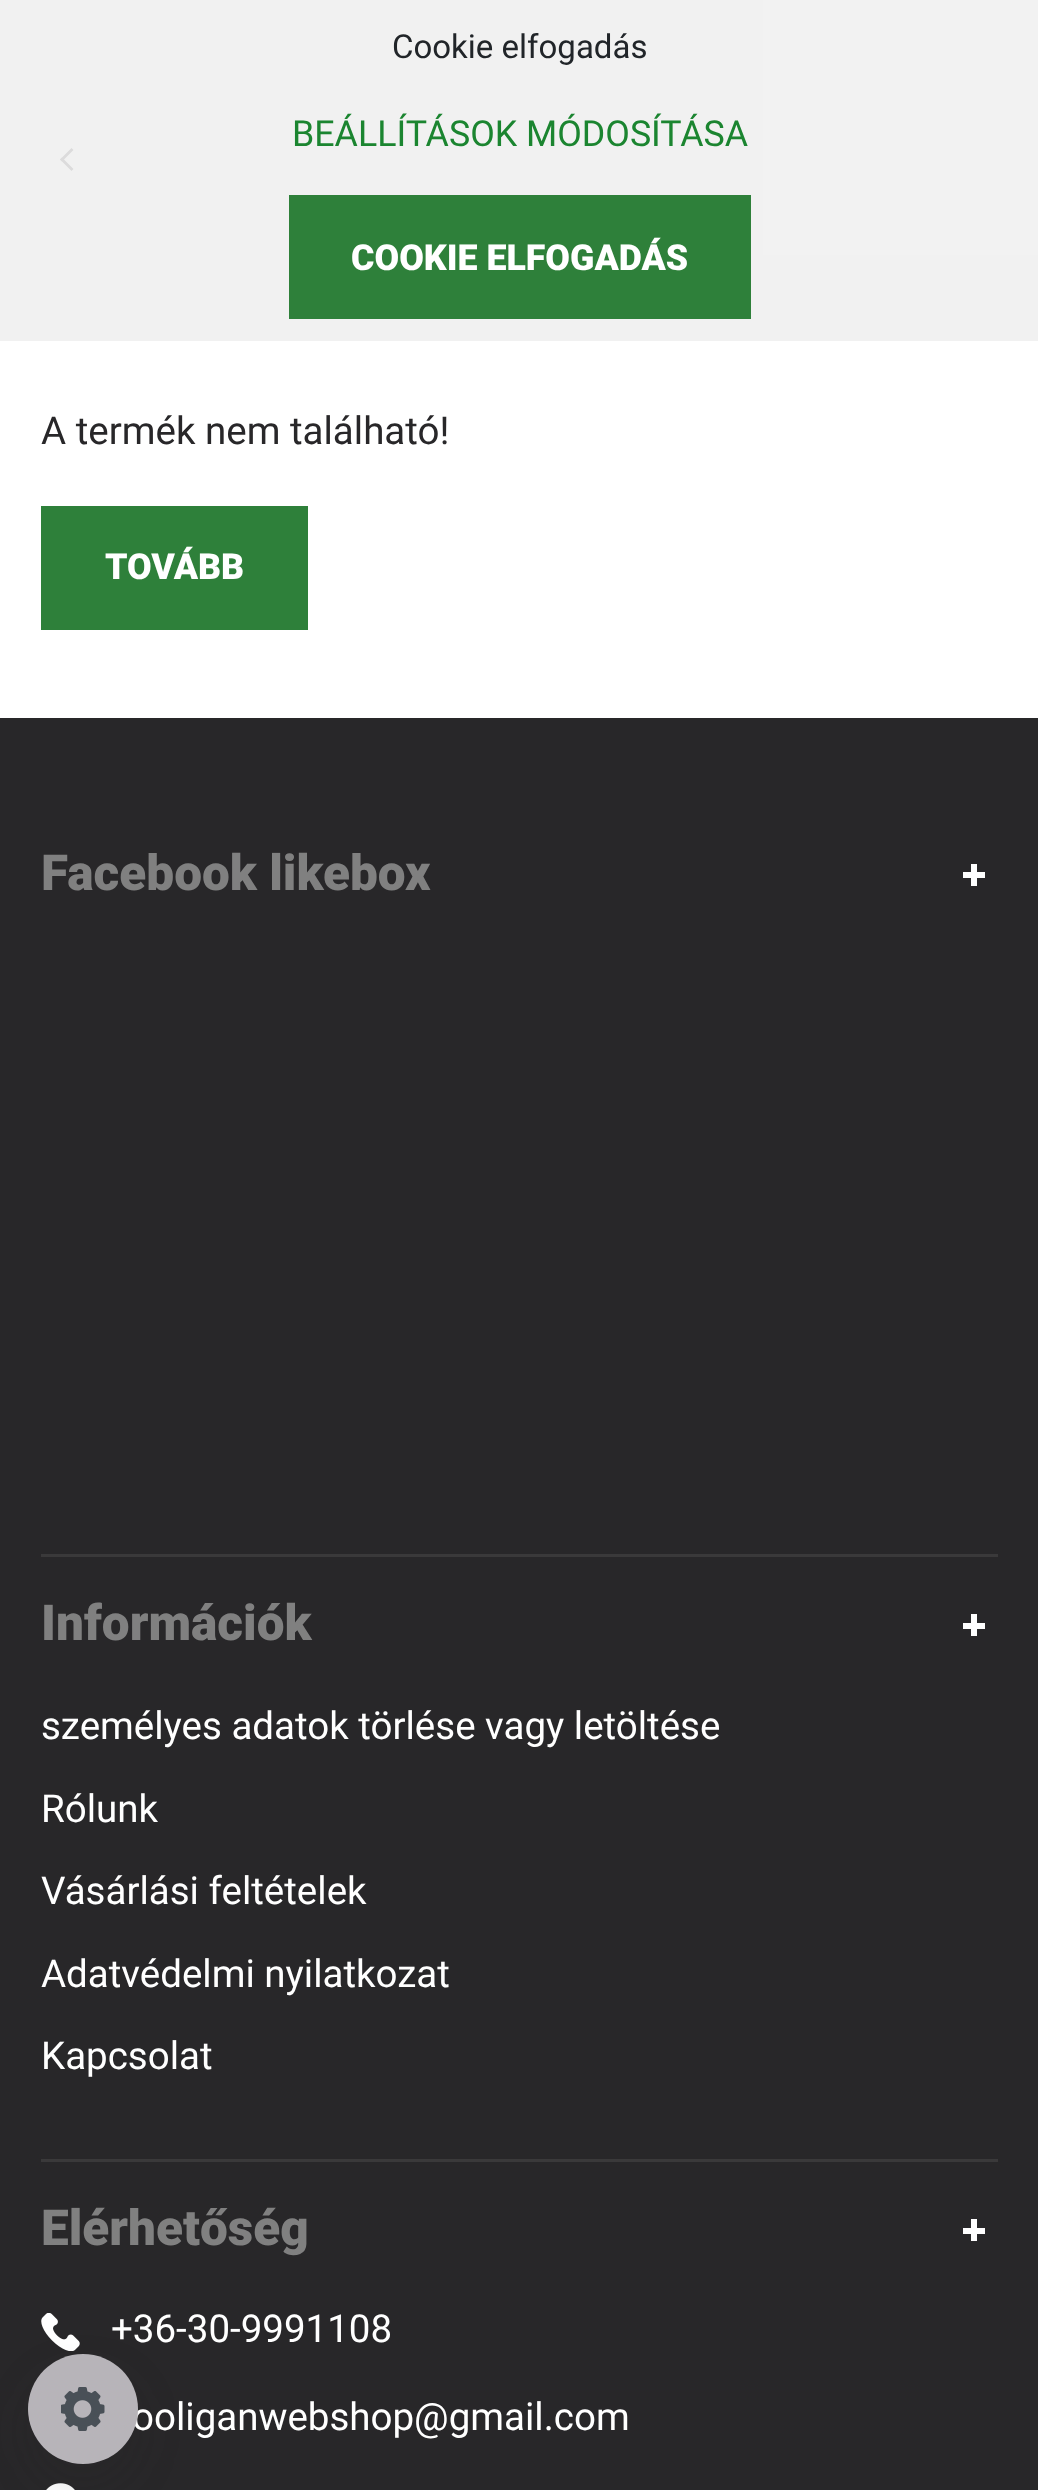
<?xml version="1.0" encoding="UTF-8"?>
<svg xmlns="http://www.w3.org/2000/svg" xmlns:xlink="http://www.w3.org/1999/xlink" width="1038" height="2490">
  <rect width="100%" height="100%" fill="#ffffff" />
  <path d="M 73.5 169 l -2 2 l -11.5 -11.5 l 2 -2 z" fill="#282729" />
  <path d="M 73.5 150 l -11.5 11.5 l -2 -2 l 11.5 -11.5 z" fill="#282729" />
  <rect width="1038" height="341" fill="#f0f0f0" fill-opacity="0.9" />
  <rect x="289" y="195" width="462" height="124" fill="#2e803a" />
  <rect x="41" y="506" width="267" height="124" fill="#2e803a" />
  <rect y="718" width="1038" height="1772" fill="#282729" />
  <rect x="41" y="1554" width="957" height="3" fill="#3a393a" />
  <rect x="971" y="864" width="6" height="22" fill="#ffffff" />
  <rect x="963" y="872" width="22" height="6" fill="#ffffff" />
  <rect x="41" y="2159" width="957" height="3" fill="#3a393a" />
  <rect x="971" y="1614" width="6" height="22" fill="#ffffff" />
  <rect x="963" y="1623" width="22" height="6" fill="#ffffff" />
  <rect x="971" y="2219" width="6" height="22" fill="#ffffff" />
  <rect x="963" y="2228" width="22" height="6" fill="#ffffff" />
  <image x="41" y="2313" width="39" height="38" xlink:href="image1.png" />
  <image x="46" y="2483" width="29" height="7" xlink:href="image2.png" />
  <rect x="28" y="2376" width="110" height="110" rx="55" fill="#282729" fill-opacity="0.15" filter="blur(22px)" />
  <text x="392" y="58" style="font-family: Roboto; font-size: 33px; fill: #212529">Cookie elfogadás</text>
  <text x="292" y="146" style="font-family: Roboto; font-size: 35.75px; fill: #1b8530">BEÁLLÍTÁSOK MÓDOSÍTÁSA</text>
  <text x="351" y="270" style="font-family: Roboto; font-size: 35.75px; font-weight: 900; fill: #ffffff">COOKIE ELFOGADÁS</text>
  <text x="41" y="444" style="font-family: Roboto; font-size: 38.5px; fill: #282729">A termék nem található!</text>
  <text x="105" y="579" style="font-family: Roboto; font-size: 35.75px; font-weight: 900; fill: #ffffff">TOVÁBB</text>
  <text x="41" y="890" style="font-family: Roboto; font-size: 49.5px; font-weight: 900; fill: #808080">Facebook likebox</text>
  <text x="41" y="1640" style="font-family: Roboto; font-size: 49.5px; font-weight: 900; fill: #808080">Információk</text>
  <text x="41" y="1739" style="font-family: Roboto; font-size: 38.5px; fill: #ffffff">személyes adatok törlése vagy letöltése</text>
  <text x="41" y="1822" style="font-family: Roboto; font-size: 38.5px; fill: #ffffff">Rólunk</text>
  <text x="41" y="1904" style="font-family: Roboto; font-size: 38.5px; fill: #ffffff">Vásárlási feltételek</text>
  <text x="41" y="1987" style="font-family: Roboto; font-size: 38.5px; fill: #ffffff">Adatvédelmi nyilatkozat</text>
  <text x="41" y="2069" style="font-family: Roboto; font-size: 38.5px; fill: #ffffff">Kapcsolat</text>
  <text x="41" y="2245" style="font-family: Roboto; font-size: 49.5px; font-weight: 900; fill: #808080">Elérhetőség</text>
  <text x="111" y="2342" style="font-family: Roboto; font-size: 38.5px; fill: #ffffff">+36-30-9991108</text>
  <text x="132" y="2430" style="font-family: Roboto; font-size: 38.5px; fill: #ffffff">ooliganwebshop@gmail.com</text>
  <circle cx="83" cy="2409" r="55" fill="#b7b4b9" />
  <image x="61" y="2387" width="44" height="44" xlink:href="image3.png" />
</svg>
